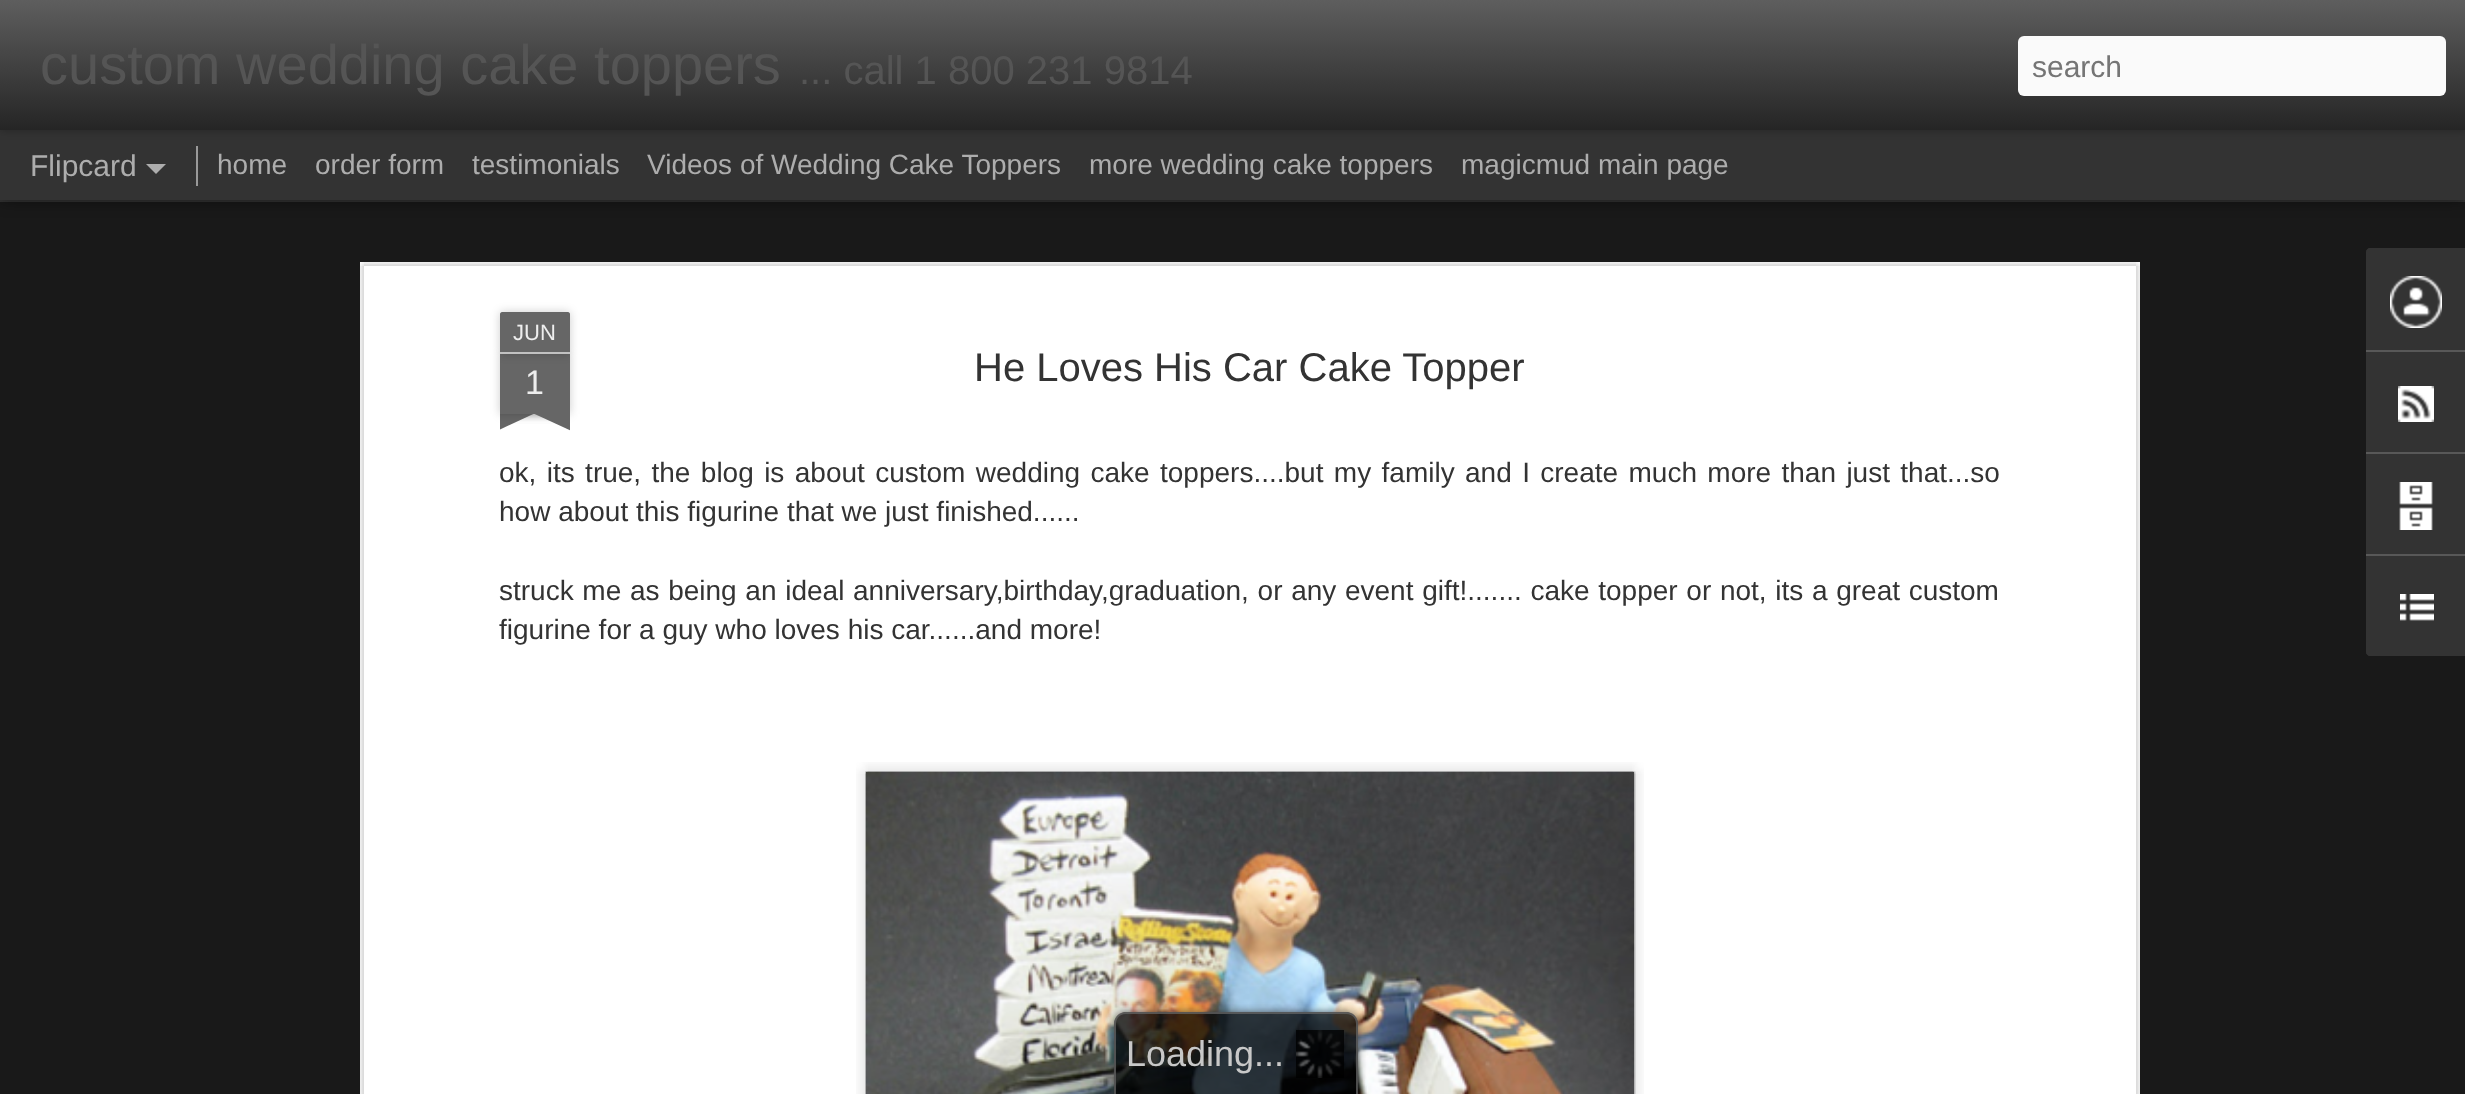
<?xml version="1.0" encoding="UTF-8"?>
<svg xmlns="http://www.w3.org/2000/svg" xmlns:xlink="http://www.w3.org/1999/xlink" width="2465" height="1094">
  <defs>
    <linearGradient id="g1" gradientUnits="userSpaceOnUse" x1="0" y1="0" x2="0" y2="130"><stop offset="0" stop-color="#5e5e5e" /><stop offset="1" stop-color="#252525" /></linearGradient>
    <clipPath id="clip1"><rect x="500" y="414" width="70" height="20" /></clipPath>
    <clipPath id="clip2"><rect x="500" y="414" width="70" height="20" /></clipPath>
    <clipPath id="clip3"><path d="M 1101 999 h 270 v 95 h -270 z m 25 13 h 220 c 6.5 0 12 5.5 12 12 v 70 h -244 v -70 c 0 -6.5 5.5 -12 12 -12 z" clip-rule="evenodd" /></clipPath>
  </defs>
  <rect width="100%" height="100%" fill="#333333" />
  <rect y="202" width="2465" height="892" fill="#191919" />
  <rect y="130" width="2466" height="70" fill="#000000" fill-opacity="0.5" filter="blur(8px)" />
  <rect y="130" width="2465" height="70" fill="#333333" />
  <rect width="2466" height="130" fill="#000000" fill-opacity="0.3" filter="blur(5px)" />
  <rect width="2465" height="130" fill="url(#g1)" />
  <rect x="2018" y="36" width="428" height="60" rx="6" fill="#fafafa" />
  <path d="M 146 164 h 20 l -10 10 z" fill="#adadad" />
  <rect x="196" y="146" width="2" height="40" fill="#999999" />
  <rect x="360" y="262" width="1780" height="832" fill="#ffffff" />
  <image x="360" y="262" width="1780" height="832" xlink:href="image1.png" />
  <rect x="500" y="354" width="70" height="60" fill="#000000" fill-opacity="0.2" filter="blur(5px)" />
  <rect x="500" y="354" width="70" height="60" fill="#666666" />
  <rect x="500" y="312" width="70" height="42" rx="2" fill="#000000" fill-opacity="0.2" filter="blur(5px)" />
  <path d="M 502 312 h 66 c 1 0 2 1 2 2 v 40 h -70 v -40 c 0 -1 1 -2 2 -2 z" fill="#666666" />
  <rect x="500" y="352" width="70" height="2" fill="#c2c2c2" />
  <g clip-path="url(#clip1)">
    <rect x="482" y="394" width="100" height="20" fill="#000000" fill-opacity="0.2" filter="blur(5px)" />
  </g>
  <g clip-path="url(#clip2)">
    <path d="M 481 416 l 91 -42 l 9 18 l -91 42 z" fill="#666666" />
  </g>
  <g clip-path="url(#clip1)">
    <rect x="488" y="394" width="100" height="20" fill="#000000" fill-opacity="0.2" filter="blur(5px)" />
  </g>
  <g clip-path="url(#clip2)">
    <path d="M 496 374 l 91 42 l -9 18 l -91 -42 z" fill="#666666" />
  </g>
  <image x="856" y="762" width="788" height="332" xlink:href="image2.png" />
  <image x="865" y="771" width="771" height="323" xlink:href="image3.png" />
  <path d="M 2370 248 h 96 v 408 h -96 c -2 0 -4 -2 -4 -4 v -400 c 0 -2 2 -4 4 -4 z" fill="#333333" />
  <path d="M 2370 248 h 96 v 102 h -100 v -98 c 0 -2 2 -4 4 -4 z" fill="#333333" />
  <image x="2390" y="276" width="52" height="52" xlink:href="image4.png" />
  <rect x="2366" y="350" width="99" height="2" fill="#585858" />
  <image x="2398" y="386" width="36" height="36" xlink:href="image5.png" />
  <rect x="2366" y="452" width="99" height="2" fill="#585858" />
  <image x="2399" y="482" width="34" height="48" xlink:href="image6.png" />
  <path d="M 2366 554 h 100 v 102 h -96 c -2 0 -4 -2 -4 -4 z" fill="#333333" />
  <rect x="2366" y="554" width="99" height="2" fill="#585858" />
  <image x="2400" y="594" width="34" height="27" xlink:href="image7.png" />
  <g clip-path="url(#clip3)">
    <rect x="1114" y="1012" width="244" height="82" rx="12" fill="#333333" fill-opacity="0.75" filter="blur(4px)" />
  </g>
  <path d="M 1126 1012 h 220 c 6.5 0 12 5.5 12 12 v 70 h -244 v -70 c 0 -6.5 5.5 -12 12 -12 z" fill="#000000" fill-opacity="0.75" />
  <path d="M 1126 1012 h 220 c 7 0 12 5 12 12 v 70 h -244 v -70 c 0 -7 5 -12 12 -12 z m 0 2 h 220 c 6 0 10 4 10 10 v 70 h -240 v -70 c 0 -6 4 -10 10 -10 z" fill="#666666" fill-opacity="0.75" fill-rule="evenodd" />
  <image x="1296" y="1030" width="48" height="48" xlink:href="image8.png" />
  <text x="40" y="84" style="font-family: Liberation Sans; font-size: 56px; fill: #555555">custom wedding cake toppers</text>
  <text x="799" y="84" style="font-family: Liberation Sans; font-size: 40px; fill: #555555">... call 1 800 231 9814</text>
  <text x="2032" y="77" style="font-family: Liberation Sans; font-size: 30px; fill: #757575">search</text>
  <text x="30" y="176" style="font-family: Liberation Sans; font-size: 30px; fill: #adadad">Flipcard</text>
  <text x="217" y="174" style="font-family: Liberation Sans; font-size: 28px; fill: #adadad">home</text>
  <text x="315" y="174" style="font-family: Liberation Sans; font-size: 28px; fill: #adadad">order form</text>
  <text x="472" y="174" style="font-family: Liberation Sans; font-size: 28px; fill: #adadad">testimonials</text>
  <text x="647" y="174" style="font-family: Liberation Sans; font-size: 28px; fill: #adadad">Videos of Wedding Cake Toppers</text>
  <text x="1089" y="174" style="font-family: Liberation Sans; font-size: 28px; fill: #adadad">more wedding cake toppers</text>
  <text x="1461" y="174" style="font-family: Liberation Sans; font-size: 28px; fill: #adadad">magicmud main page</text>
  <text x="513" y="340" style="font-family: Liberation Sans; font-size: 22px; fill: #eeeeee">JUN</text>
  <text x="525" y="394" style="font-family: Liberation Sans; font-size: 34px; fill: #eeeeee">1</text>
  <text x="974" y="381" style="font-family: Liberation Sans; font-size: 40px; fill: #333333">He Loves His Car Cake Topper</text>
  <text x="499" y="482" word-spacing="2.6" style="font-family: Liberation Sans; font-size: 28px; fill: #333333">ok, its true, the blog is about custom wedding cake toppers....but my family and I create much more than just that...so</text>
  <text x="499" y="521" style="font-family: Liberation Sans; font-size: 28px; fill: #333333">how about this figurine that we just finished......</text>
  <text x="499" y="600" word-spacing="0.9" style="font-family: Liberation Sans; font-size: 28px; fill: #333333">struck me as being an ideal anniversary,birthday,graduation, or any event gift!....... cake topper or not, its a great custom</text>
  <text x="499" y="639" style="font-family: Liberation Sans; font-size: 28px; fill: #333333">figurine for a guy who loves his car......and more!</text>
  <text x="1126" y="1066" style="font-family: Liberation Sans; font-size: 36px; fill: #c8c8c8">Loading</text>
  <text x="1254" y="1066" style="font-family: Liberation Sans; font-size: 36px; fill: #c8c8c8">...</text>
</svg>
